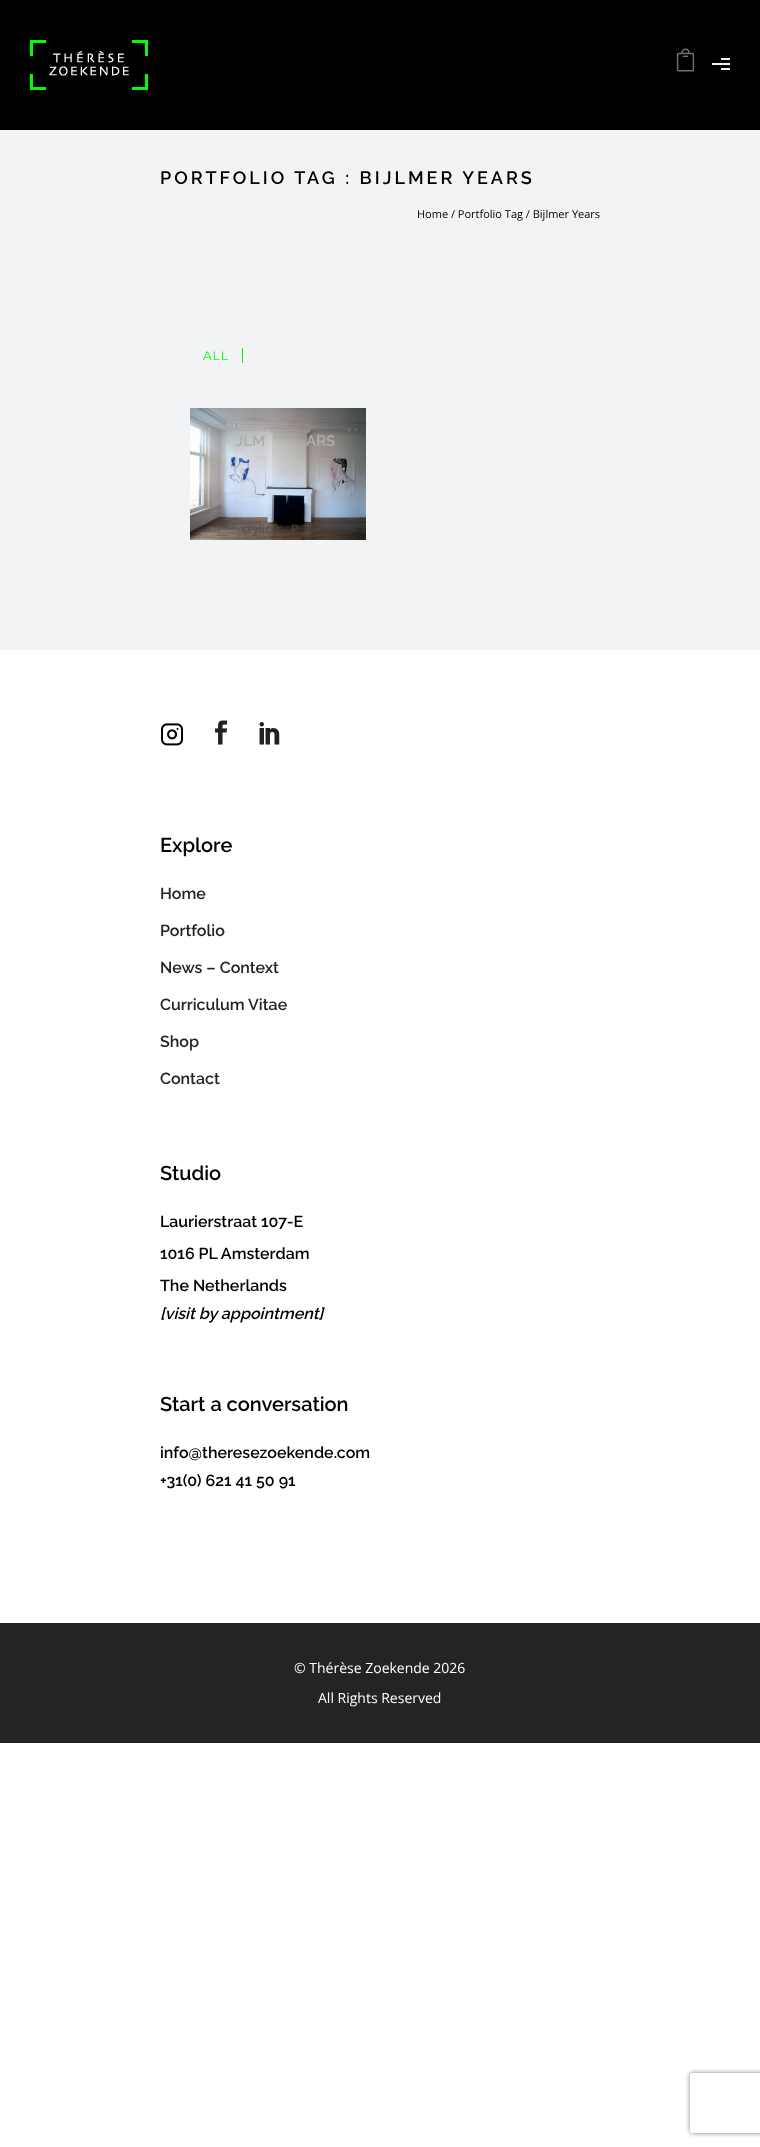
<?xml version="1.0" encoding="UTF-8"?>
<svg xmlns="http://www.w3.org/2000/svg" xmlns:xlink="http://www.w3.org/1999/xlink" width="760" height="2147">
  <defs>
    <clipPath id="clip1"><path d="M 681 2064 h 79 v 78 h -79 z m 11 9 h 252 c 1 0 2 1 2 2 v 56 c 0 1 -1 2 -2 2 h -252 c -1 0 -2 -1 -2 -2 v -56 c 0 -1 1 -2 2 -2 z" clip-rule="evenodd" /></clipPath>
  </defs>
  <rect width="100%" height="100%" fill="#ffffff" />
  <rect width="760" height="130" fill="#000000" />
  <image x="30" y="40" width="118" height="50" xlink:href="image1.png" />
  <image x="676" y="48" width="19" height="24" xlink:href="image2.png" />
  <rect x="721" y="58" width="9" height="2" fill="#f5f5f5" />
  <rect x="712" y="63" width="18" height="2" fill="#f5f5f5" />
  <rect x="721" y="68" width="9" height="2" fill="#f5f5f5" />
  <rect y="130" width="760" height="520" fill="#f2f3f5" />
  <rect x="242" y="348" width="1" height="15" fill="#00ff00" />
  <image x="190" y="408" width="176" height="132" xlink:href="image3.png" />
  <image x="161" y="723" width="22" height="23" xlink:href="image4.png" />
  <image x="215" y="720" width="13" height="25" xlink:href="image5.png" />
  <image x="259" y="722" width="21" height="23" xlink:href="image6.png" />
  <rect y="1623" width="760" height="120" fill="#232426" />
  <g clip-path="url(#clip1)">
    <rect x="690" y="2073" width="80" height="60" rx="2" fill="#808080" filter="blur(2.5px)" />
  </g>
  <text x="160" y="184" style="font-family: Raleway; font-size: 18px; font-weight: 600; letter-spacing: 3px; fill: #000000">PORTFOLIO TAG : BIJLMER YEARS</text>
  <text x="417" y="218" style="font-family: Open Sans; font-size: 11px; fill: #000000">Home / Portfolio Tag / Bijlmer Years</text>
  <text x="203" y="360" style="font-family: Montserrat; font-size: 12px; letter-spacing: 1px; fill: #00ff00">ALL</text>
  <text x="236" y="446" style="font-family: Raleway; font-size: 15px; font-weight: 600; fill: #aeaeac">JLM</text>
  <text x="306" y="446" style="font-family: Raleway; font-size: 15px; font-weight: 600; fill: #aeaeac">ARS</text>
  <text x="242" y="533" style="font-family: Open Sans; font-size: 12px; fill: #564941">crylic</text>
  <text x="291" y="533" style="font-family: Open Sans; font-size: 12px; fill: #564941">P</text>
  <text x="160" y="852" style="font-family: Raleway; font-size: 20px; font-weight: 600; fill: #000000">Explore</text>
  <text x="160" y="899" style="font-family: Raleway; font-size: 16px; font-weight: 600; fill: #222222">Home</text>
  <text x="160" y="936" style="font-family: Raleway; font-size: 16px; font-weight: 600; fill: #222222">Portfolio</text>
  <text x="160" y="973" style="font-family: Raleway; font-size: 16px; font-weight: 600; fill: #222222">News – Context</text>
  <text x="160" y="1010" style="font-family: Raleway; font-size: 16px; font-weight: 600; fill: #222222">Curriculum Vitae</text>
  <text x="160" y="1047" style="font-family: Raleway; font-size: 16px; font-weight: 600; fill: #222222">Shop</text>
  <text x="160" y="1084" style="font-family: Raleway; font-size: 16px; font-weight: 600; fill: #222222">Contact</text>
  <text x="160" y="1180" style="font-family: Raleway; font-size: 20px; font-weight: 600; fill: #000000">Studio</text>
  <text x="160" y="1227" style="font-family: Raleway; font-size: 16px; font-weight: 600; fill: #000000">Laurierstraat 107-E</text>
  <text x="160" y="1259" style="font-family: Raleway; font-size: 16px; font-weight: 600; fill: #000000">1016 PL Amsterdam</text>
  <text x="160" y="1291" style="font-family: Raleway; font-size: 16px; font-weight: 600; fill: #000000">The Netherlands</text>
  <text x="160" y="1319" style="font-family: Raleway; font-size: 16px; font-weight: 600; font-style: italic; fill: #000000">[visit by appointment]</text>
  <text x="160" y="1411" style="font-family: Raleway; font-size: 20px; font-weight: 600; fill: #000000">Start a conversation</text>
  <text x="160" y="1458" style="font-family: Raleway; font-size: 16px; font-weight: 600; fill: #000000">info@theresezoekende.com</text>
  <text x="160" y="1486" style="font-family: Raleway; font-size: 16px; font-weight: 600; fill: #000000">+31(0) 621 41 50 91</text>
  <text x="294" y="1673" style="font-family: Open Sans; font-size: 14px; fill: #ffffff">© Thérèse Zoekende 2026</text>
  <text x="318" y="1703" style="font-family: Open Sans; font-size: 14px; fill: #ffffff">All Rights Reserved</text>
</svg>
